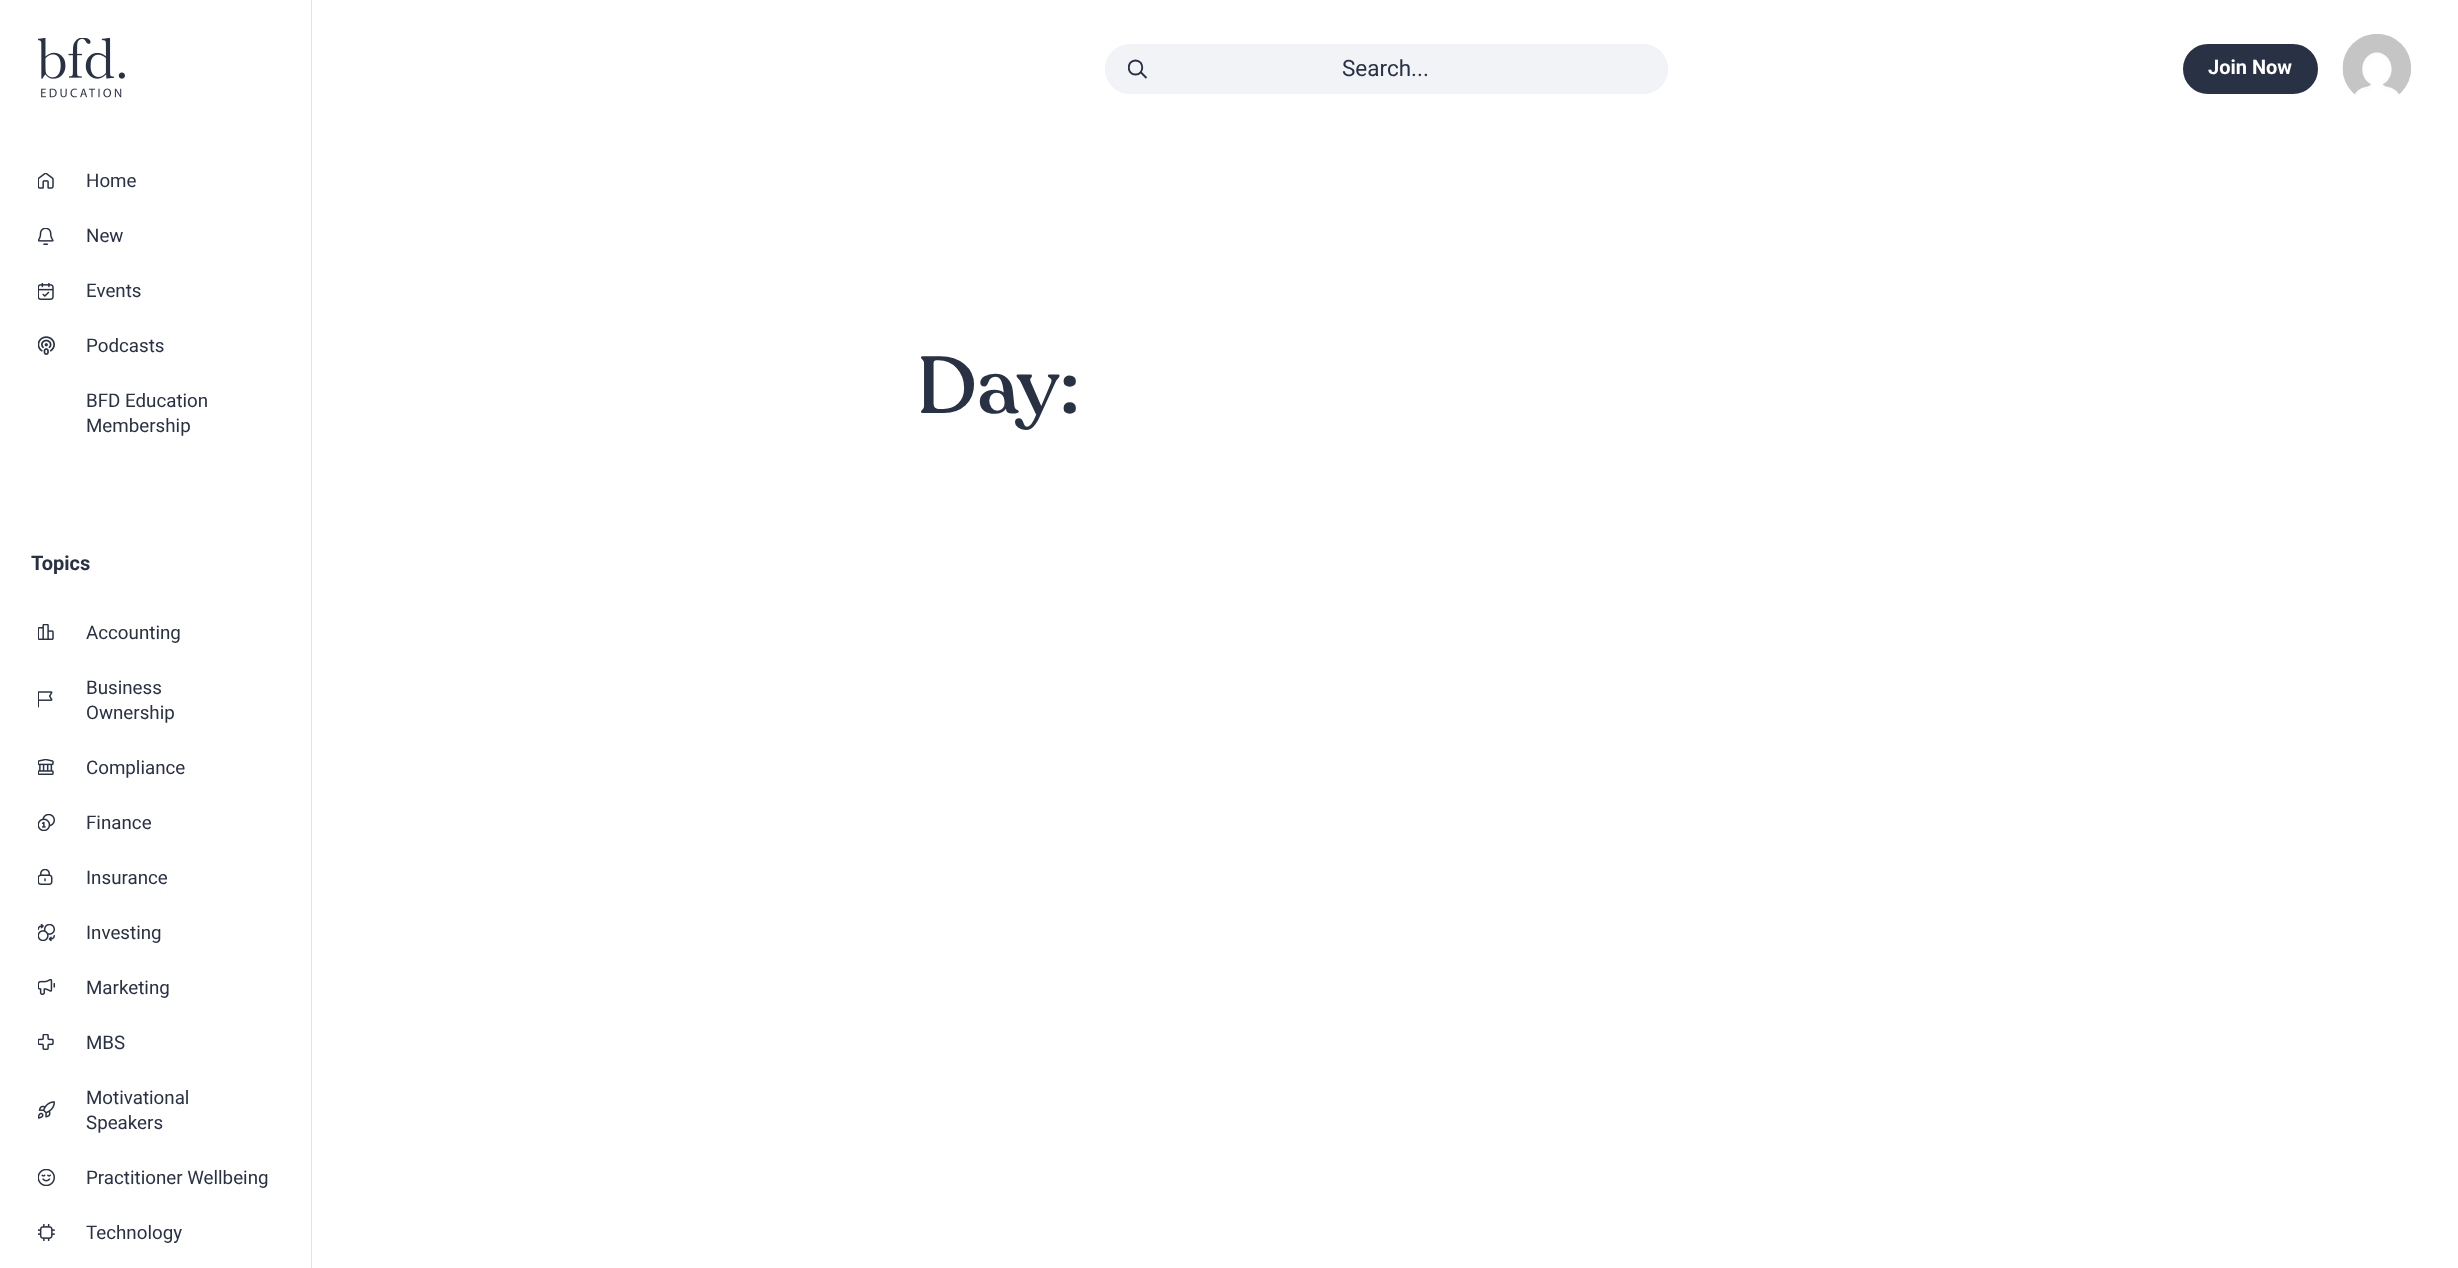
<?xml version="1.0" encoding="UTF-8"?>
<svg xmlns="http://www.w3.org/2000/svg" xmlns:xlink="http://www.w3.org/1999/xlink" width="2458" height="1268">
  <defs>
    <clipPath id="clip1"><rect x="1128" y="59" width="20" height="20" /></clipPath>
  </defs>
  <rect width="100%" height="100%" fill="#ffffff" />
  <rect x="311" width="1" height="1268" fill="#dfe3ec" />
  <image x="38" y="38" width="87" height="60" xlink:href="image1.png" />
  <image x="38" y="173" width="16" height="16" xlink:href="image2.png" />
  <image x="38" y="228" width="16" height="17" xlink:href="image3.png" />
  <image x="38" y="283" width="16" height="17" xlink:href="image4.png" />
  <image x="38" y="336" width="17" height="19" xlink:href="image5.png" />
  <image x="38" y="624" width="16" height="16" xlink:href="image6.png" />
  <image x="38" y="691" width="15" height="17" xlink:href="image7.png" />
  <image x="38" y="759" width="16" height="16" xlink:href="image8.png" />
  <image x="38" y="814" width="17" height="17" xlink:href="image9.png" />
  <image x="38" y="869" width="15" height="16" xlink:href="image10.png" />
  <image x="38" y="924" width="17" height="17" xlink:href="image11.png" />
  <image x="38" y="979" width="17" height="16" xlink:href="image12.png" />
  <image x="38" y="1034" width="16" height="16" xlink:href="image13.png" />
  <image x="38" y="1101" width="17" height="18" xlink:href="image14.png" />
  <image x="38" y="1169" width="17" height="17" xlink:href="image15.png" />
  <image x="38" y="1224" width="17" height="17" xlink:href="image16.png" />
  <rect x="1105" y="44" width="563" height="50" rx="25" fill="#f1f3f7" />
  <g clip-path="url(#clip1)">
    <path d="M 1135.5 74.5 c 9 0 9 -14 0 -14 c -9 0 -9 14 0 14 z m 5 -2.5 l 6 6" fill="none" stroke="#293144" stroke-width="1.9" />
  </g>
  <rect x="1105.5" y="44.5" width="562" height="49" rx="24.5" fill="none" stroke="#f1f3f7" />
  <rect x="2184.5" y="45.5" width="132" height="47" rx="23.5" fill="#293144" stroke="#293144" stroke-width="3" />
  <image x="2342" y="34" width="69" height="61" xlink:href="image17.png" />
  <text x="86" y="187" style="font-family: Roboto; font-size: 18.75px; fill: #293144">Home</text>
  <text x="86" y="242" style="font-family: Roboto; font-size: 18.75px; fill: #293144">New</text>
  <text x="86" y="297" style="font-family: Roboto; font-size: 18.75px; fill: #293144">Events</text>
  <text x="86" y="352" style="font-family: Roboto; font-size: 18.75px; fill: #293144">Podcasts</text>
  <text x="86" y="407" style="font-family: Roboto; font-size: 18.75px; fill: #293144">BFD Education</text>
  <text x="86" y="432" style="font-family: Roboto; font-size: 18.75px; fill: #293144">Membership</text>
  <text x="31" y="570" style="font-family: Roboto; font-size: 20px; font-weight: bold; fill: #293144">Topics</text>
  <text x="86" y="639" style="font-family: Roboto; font-size: 18.75px; fill: #293144">Accounting</text>
  <text x="86" y="694" style="font-family: Roboto; font-size: 18.75px; fill: #293144">Business</text>
  <text x="86" y="719" style="font-family: Roboto; font-size: 18.75px; fill: #293144">Ownership</text>
  <text x="86" y="774" style="font-family: Roboto; font-size: 18.75px; fill: #293144">Compliance</text>
  <text x="86" y="829" style="font-family: Roboto; font-size: 18.75px; fill: #293144">Finance</text>
  <text x="86" y="884" style="font-family: Roboto; font-size: 18.75px; fill: #293144">Insurance</text>
  <text x="86" y="939" style="font-family: Roboto; font-size: 18.75px; fill: #293144">Investing</text>
  <text x="86" y="994" style="font-family: Roboto; font-size: 18.75px; fill: #293144">Marketing</text>
  <text x="86" y="1049" style="font-family: Roboto; font-size: 18.75px; fill: #293144">MBS</text>
  <text x="86" y="1104" style="font-family: Roboto; font-size: 18.75px; fill: #293144">Motivational</text>
  <text x="86" y="1129" style="font-family: Roboto; font-size: 18.75px; fill: #293144">Speakers</text>
  <text x="86" y="1184" style="font-family: Roboto; font-size: 18.75px; fill: #293144">Practitioner Wellbeing</text>
  <text x="86" y="1239" style="font-family: Roboto; font-size: 18.75px; fill: #293144">Technology</text>
  <text x="1342" y="76" style="font-family: Roboto; font-size: 22.5px; fill: #293144">Search...</text>
  <text x="2208" y="74" style="font-family: Roboto; font-size: 20px; font-weight: bold; fill: #ffffff">Join Now</text>
  <text x="917" y="413" style="font-family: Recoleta; font-size: 80px; font-weight: 500; fill: #293144">Day:</text>
</svg>
